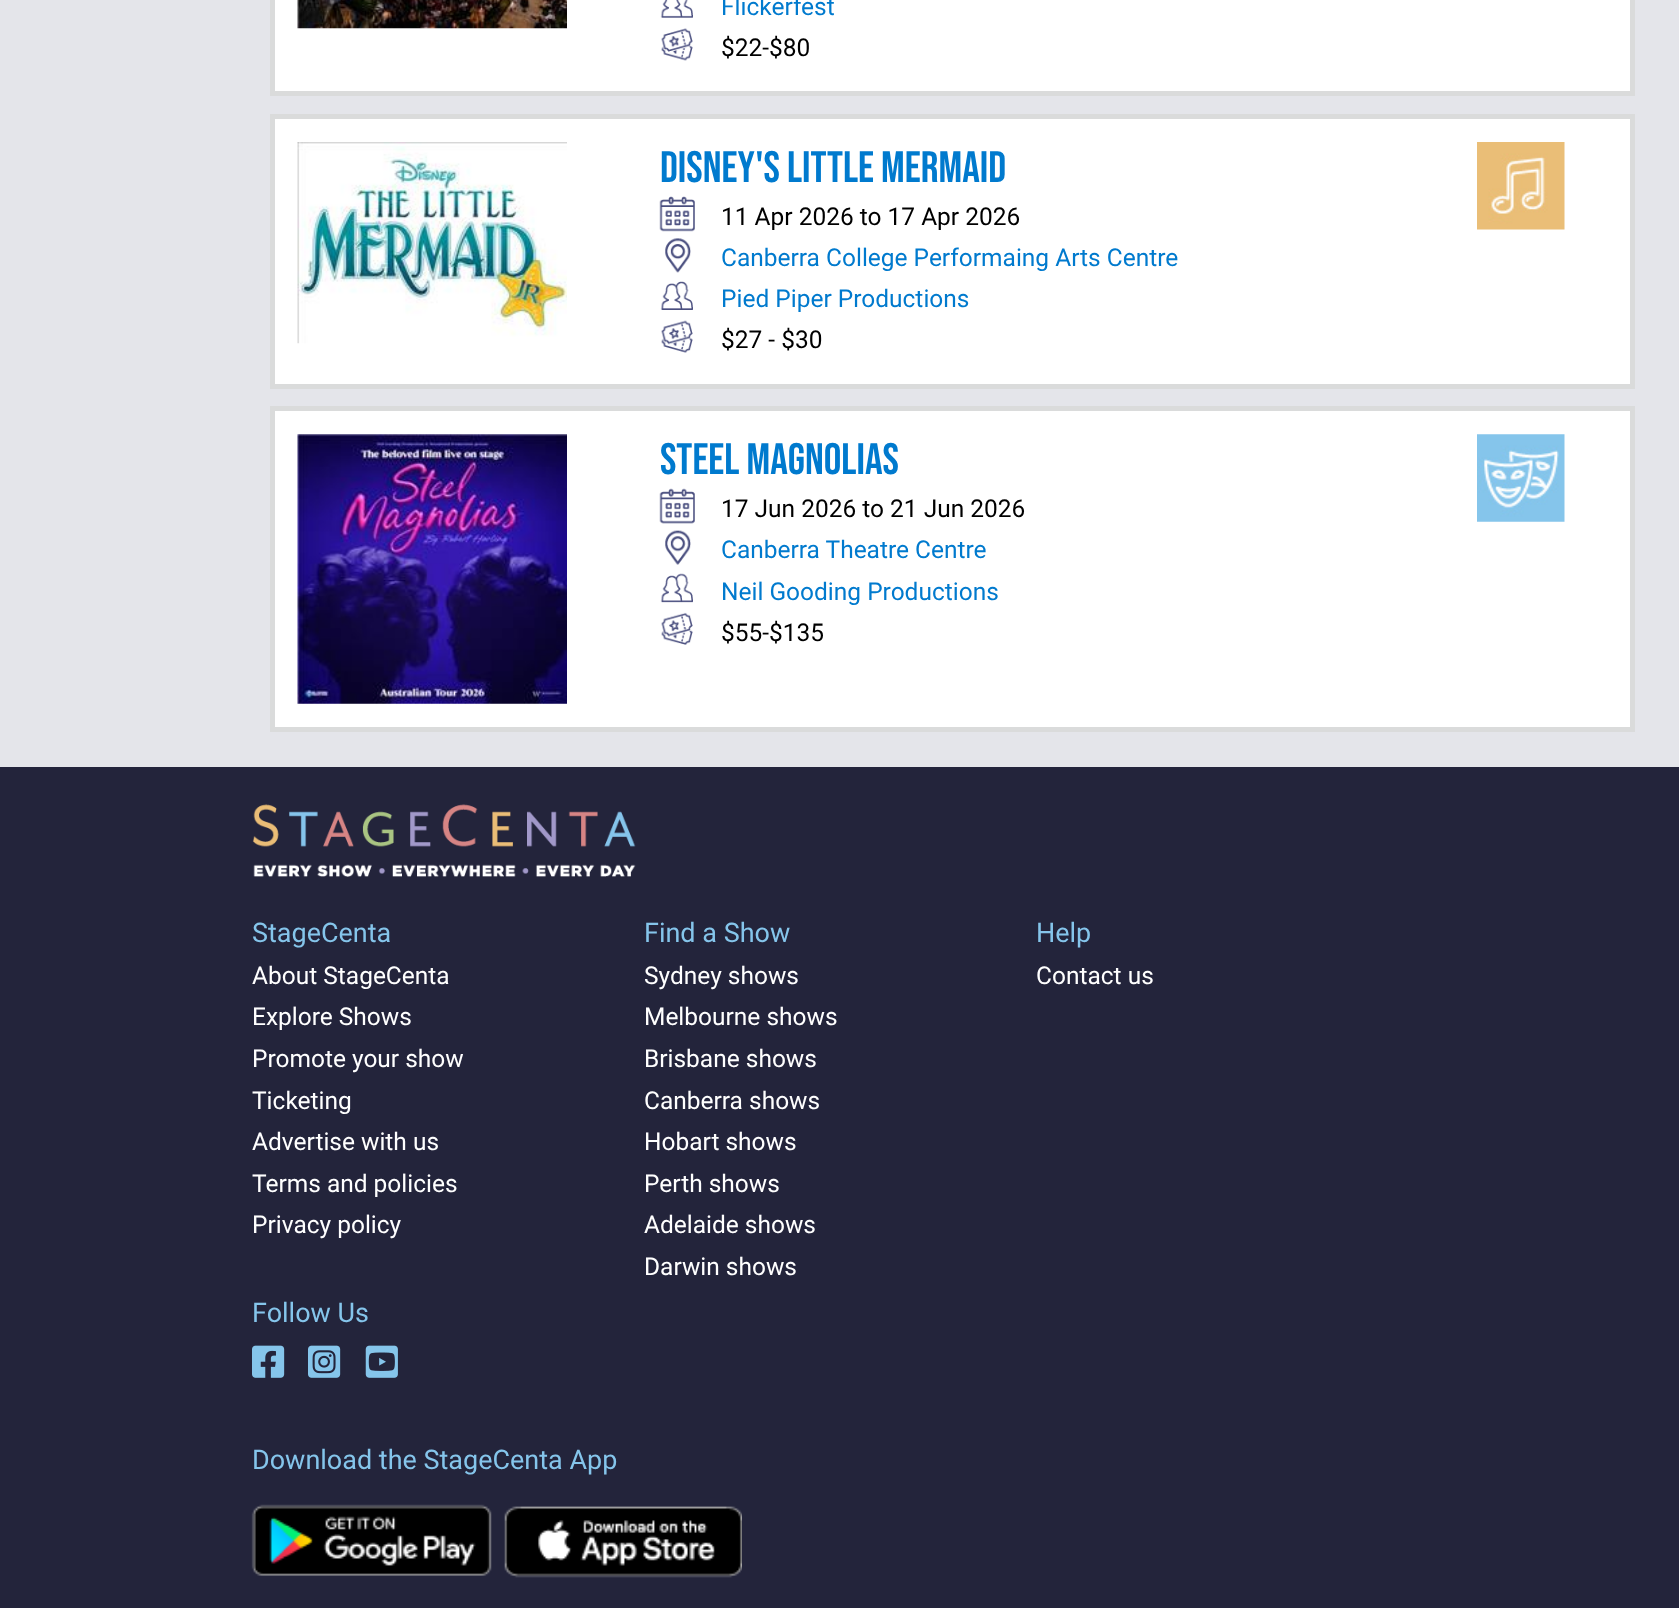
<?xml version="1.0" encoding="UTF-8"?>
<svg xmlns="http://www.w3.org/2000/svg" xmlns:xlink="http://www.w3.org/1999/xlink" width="1679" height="1608">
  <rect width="100%" height="100%" fill="#e4e5ea" />
  <rect x="272.5" y="-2.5" width="1360" height="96" fill="#ffffff" stroke="#dadbdb" stroke-width="5" />
  <image x="297" y="0" width="270" height="29" xlink:href="image1.png" />
  <image x="660" y="0" width="33" height="18" xlink:href="image2.png" />
  <image x="661" y="28" width="32" height="33" xlink:href="image3.png" />
  <rect x="272.5" y="116.5" width="1360" height="270" fill="#ffffff" stroke="#dadbdb" stroke-width="5" />
  <image x="297" y="142" width="270" height="202" xlink:href="image4.png" />
  <image x="659" y="196" width="36" height="36" xlink:href="image5.png" />
  <image x="665" y="238" width="26" height="35" xlink:href="image6.png" />
  <image x="660" y="281" width="33" height="29" xlink:href="image7.png" />
  <image x="661" y="320" width="32" height="33" xlink:href="image8.png" />
  <image x="1477" y="142" width="88" height="88" xlink:href="image9.png" />
  <rect x="272.5" y="408.5" width="1360" height="321" fill="#ffffff" stroke="#dadbdb" stroke-width="5" />
  <image x="297" y="434" width="270" height="270" xlink:href="image10.png" />
  <image x="659" y="488" width="36" height="36" xlink:href="image11.png" />
  <image x="665" y="530" width="26" height="35" xlink:href="image12.png" />
  <image x="660" y="573" width="33" height="30" xlink:href="image13.png" />
  <image x="661" y="612" width="32" height="33" xlink:href="image14.png" />
  <image x="1477" y="434" width="88" height="88" xlink:href="image15.png" />
  <rect y="767" width="1679" height="841" fill="#23243b" />
  <image x="252" y="804" width="384" height="73" xlink:href="image16.png" />
  <image x="252" y="1345" width="33" height="33" xlink:href="image17.png" />
  <image x="308" y="1345" width="33" height="33" xlink:href="image18.png" />
  <image x="365" y="1345" width="33" height="33" xlink:href="image19.png" />
  <image x="251" y="1504" width="491" height="74" xlink:href="image20.png" />
  <text x="721" y="15" style="font-family: Roboto; font-size: 24.5px; fill: #007ace">Flickerfest</text>
  <text x="721" y="56" style="font-family: Roboto; font-size: 24.5px; fill: #000000">$22-$80</text>
  <text x="660" y="182" style="font-family: Bebas Neue; font-size: 44px; fill: #007ace">DISNEY'S LITTLE MERMAID</text>
  <text x="721" y="225" style="font-family: Roboto; font-size: 24.5px; fill: #000000">11 Apr 2026 to 17 Apr 2026</text>
  <text x="721" y="266" style="font-family: Roboto; font-size: 24.5px; fill: #007ace">Canberra College Performaing Arts Centre</text>
  <text x="721" y="307" style="font-family: Roboto; font-size: 24.5px; fill: #007ace">Pied Piper Productions</text>
  <text x="721" y="348" style="font-family: Roboto; font-size: 24.5px; fill: #000000">$27 - $30</text>
  <text x="660" y="474" style="font-family: Bebas Neue; font-size: 44px; fill: #007ace">STEEL MAGNOLIAS</text>
  <text x="721" y="517" style="font-family: Roboto; font-size: 24.5px; fill: #000000">17 Jun 2026 to 21 Jun 2026</text>
  <text x="721" y="558" style="font-family: Roboto; font-size: 24.5px; fill: #007ace">Canberra Theatre Centre</text>
  <text x="721" y="600" style="font-family: Roboto; font-size: 24.5px; fill: #007ace">Neil Gooding Productions</text>
  <text x="721" y="641" style="font-family: Roboto; font-size: 24.5px; fill: #000000">$55-$135</text>
  <text x="252" y="942" style="font-family: Roboto; font-size: 27px; fill: #85c5eb">StageCenta</text>
  <text x="252" y="984" style="font-family: Roboto; font-size: 24.5px; fill: #ffffff">About StageCenta</text>
  <text x="252" y="1025" style="font-family: Roboto; font-size: 24.5px; fill: #ffffff">Explore Shows</text>
  <text x="252" y="1067" style="font-family: Roboto; font-size: 24.5px; fill: #ffffff">Promote your show</text>
  <text x="252" y="1109" style="font-family: Roboto; font-size: 24.5px; fill: #ffffff">Ticketing</text>
  <text x="252" y="1150" style="font-family: Roboto; font-size: 24.5px; fill: #ffffff">Advertise with us</text>
  <text x="252" y="1192" style="font-family: Roboto; font-size: 24.5px; fill: #ffffff">Terms and policies</text>
  <text x="252" y="1233" style="font-family: Roboto; font-size: 24.5px; fill: #ffffff">Privacy policy</text>
  <text x="644" y="942" style="font-family: Roboto; font-size: 27px; fill: #85c5eb">Find a Show</text>
  <text x="644" y="984" style="font-family: Roboto; font-size: 24.5px; fill: #ffffff">Sydney shows</text>
  <text x="644" y="1025" style="font-family: Roboto; font-size: 24.5px; fill: #ffffff">Melbourne shows</text>
  <text x="644" y="1067" style="font-family: Roboto; font-size: 24.5px; fill: #ffffff">Brisbane shows</text>
  <text x="644" y="1109" style="font-family: Roboto; font-size: 24.5px; fill: #ffffff">Canberra shows</text>
  <text x="644" y="1150" style="font-family: Roboto; font-size: 24.5px; fill: #ffffff">Hobart shows</text>
  <text x="644" y="1192" style="font-family: Roboto; font-size: 24.5px; fill: #ffffff">Perth shows</text>
  <text x="644" y="1233" style="font-family: Roboto; font-size: 24.5px; fill: #ffffff">Adelaide shows</text>
  <text x="644" y="1275" style="font-family: Roboto; font-size: 24.5px; fill: #ffffff">Darwin shows</text>
  <text x="1036" y="942" style="font-family: Roboto; font-size: 27px; fill: #85c5eb">Help</text>
  <text x="1036" y="984" style="font-family: Roboto; font-size: 24.5px; fill: #ffffff">Contact us</text>
  <text x="252" y="1322" style="font-family: Roboto; font-size: 27px; fill: #85c5eb">Follow Us</text>
  <text x="252" y="1469" style="font-family: Roboto; font-size: 27px; fill: #85c5eb">Download the StageCenta App</text>
</svg>
